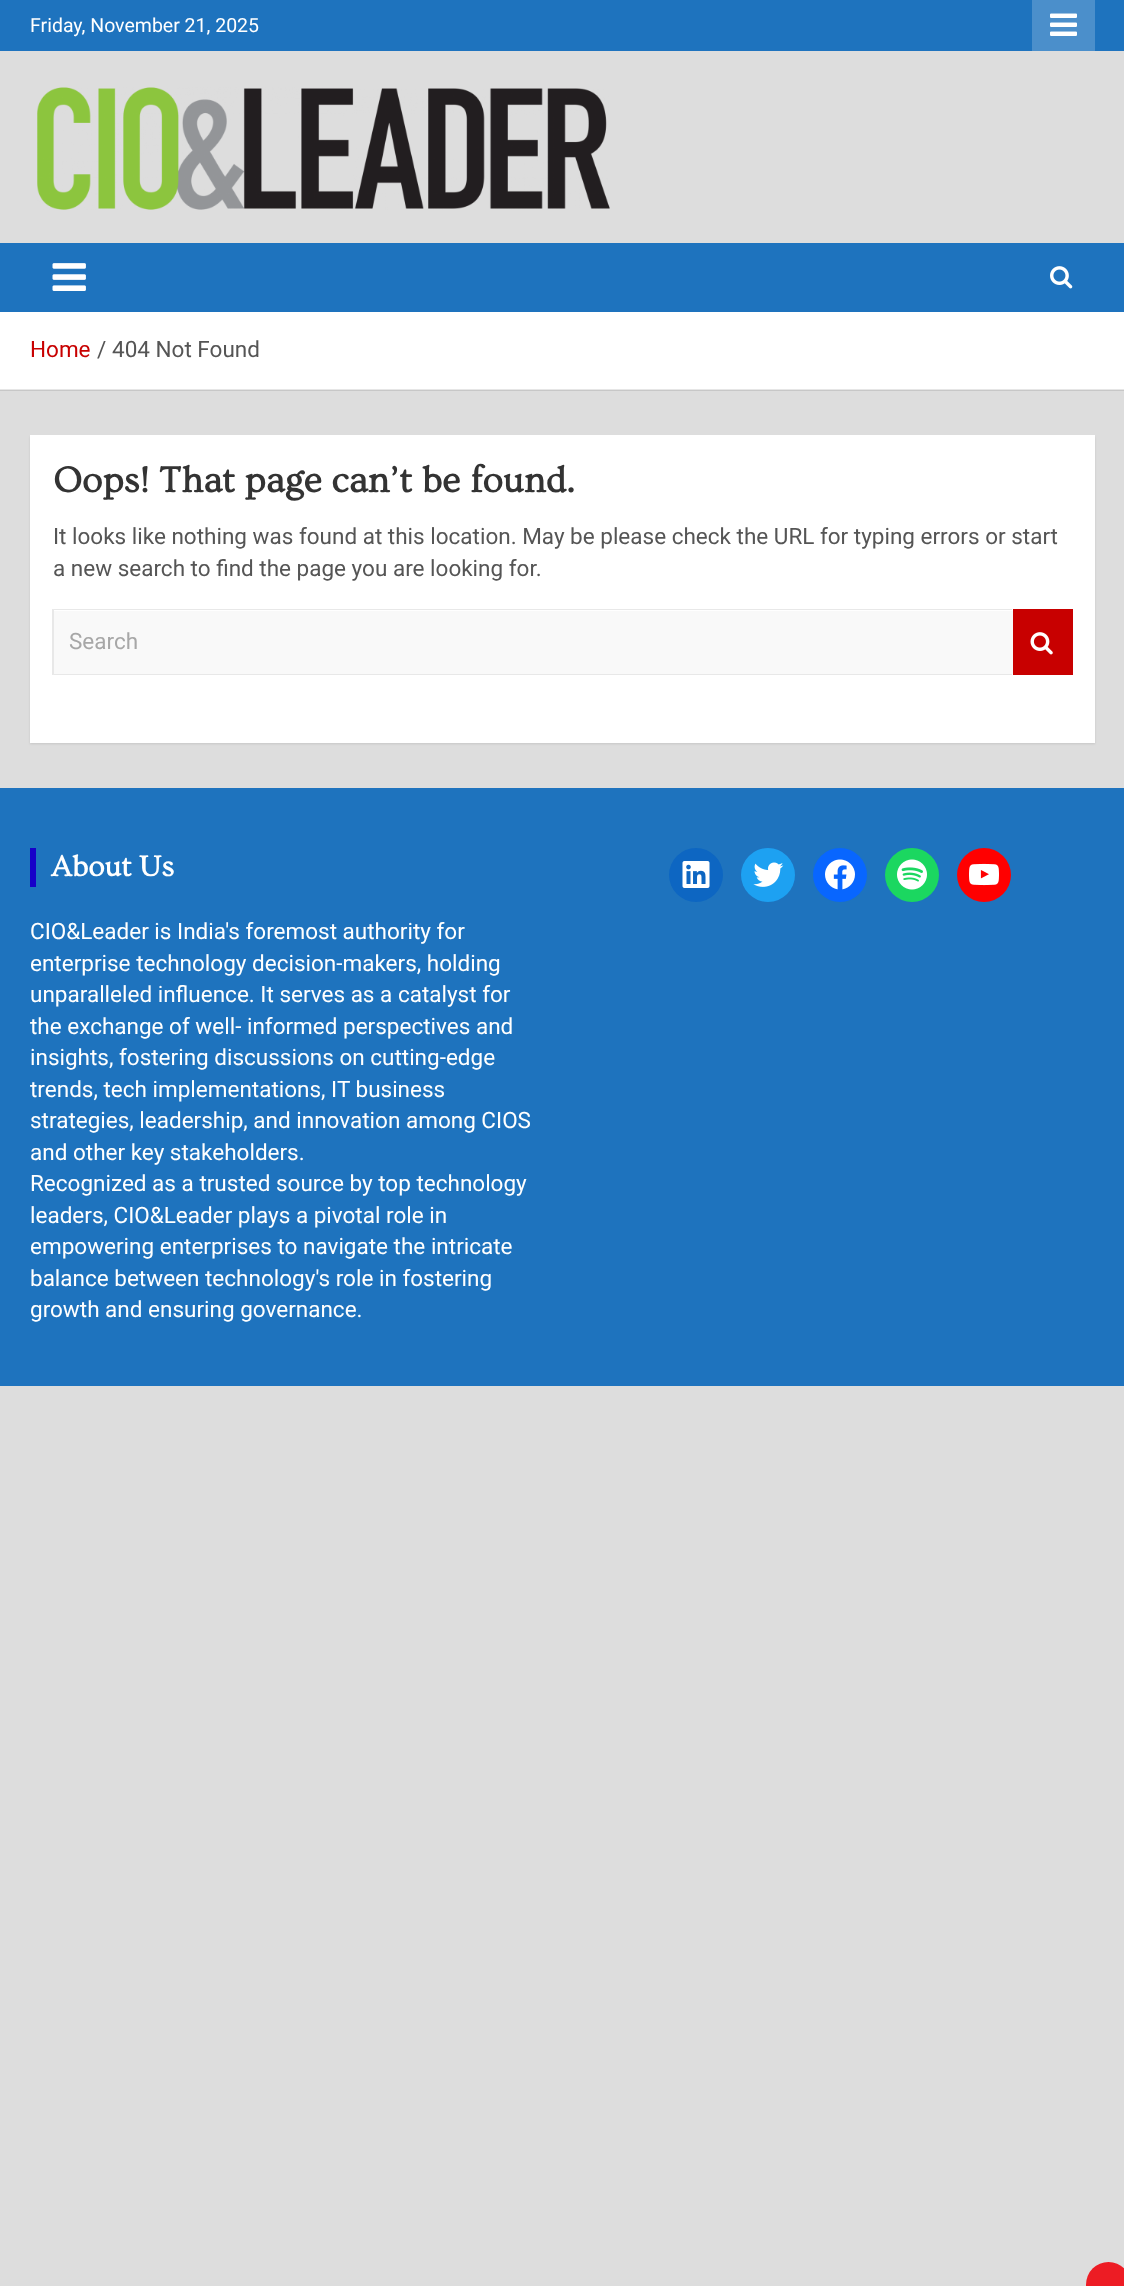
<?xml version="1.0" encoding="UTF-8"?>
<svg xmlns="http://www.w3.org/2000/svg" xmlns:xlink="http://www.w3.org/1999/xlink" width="1124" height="2286">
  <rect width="100%" height="100%" fill="#dddddd" />
  <rect y="390" width="1124" height="1" fill="#c7c7c7" />
  <rect width="1124" height="51" fill="#1e73be" />
  <rect x="1032" width="63" height="51" fill="#4b8fcb" />
  <image x="1050" y="13" width="27" height="23" xlink:href="image1.png" />
  <image x="37" y="87" width="573" height="123" xlink:href="image2.png" />
  <rect y="243" width="1124" height="69" fill="#1e73be" />
  <image x="52" y="263" width="34" height="28" xlink:href="image3.png" />
  <image x="1050" y="266" width="23" height="23" xlink:href="image4.png" />
  <rect y="312" width="1124" height="77" fill="#ffffff" />
  <rect y="389" width="1124" height="1" fill="#e6e6e6" />
  <rect x="30" y="437" width="1065" height="307" fill="#000000" fill-opacity="0.1" filter="blur(1px)" />
  <rect x="30" y="435" width="1065" height="308" fill="#ffffff" />
  <rect x="54" y="611" width="959" height="63" fill="#f9f9f9" />
  <path d="M 52 609 h 960 v 1 h -958 z" fill="#e8e8e8" />
  <path d="M 1012 675 h -960 l 2 -1 h 958 z" fill="#e8e8e8" />
  <path d="M 52 675 v -66 l 2 1 v 64 z" fill="#000000" fill-opacity="0.09" />
  <rect x="1013" y="609" width="60" height="66" fill="#c80000" />
  <image x="1030" y="632" width="23" height="23" xlink:href="image5.png" />
  <rect y="788" width="1124" height="598" fill="#1e73be" />
  <rect x="30" y="848" width="6" height="39" fill="#1700c9" />
  <circle cx="696" cy="875" r="27" fill="#0d66c2" />
  <image x="682" y="861" width="28" height="27" xlink:href="image6.png" />
  <circle cx="768" cy="875" r="27" fill="#1da1f2" />
  <image x="753" y="862" width="31" height="25" xlink:href="image7.png" />
  <circle cx="840" cy="875" r="27" fill="#0866ff" />
  <image x="825" y="859" width="30" height="31" xlink:href="image8.png" />
  <circle cx="912" cy="875" r="27" fill="#1bd760" />
  <image x="897" y="859" width="30" height="31" xlink:href="image9.png" />
  <circle cx="984" cy="875" r="27" fill="#ff0000" />
  <image x="969" y="863" width="30" height="23" xlink:href="image10.png" />
  <circle cx="1108.5" cy="2284.5" r="22.5" fill="#ed1c24" />
  <text x="30" y="32" style="font-family: Roboto; font-size: 19.5px; fill: #ffffff">Friday, November 21, 2025</text>
  <text x="30" y="357" style="font-family: Roboto; font-size: 22.5px; fill: #c80000">Home</text>
  <text x="97" y="357" style="font-family: Roboto; font-size: 22.5px; fill: #555555">/</text>
  <text x="112" y="357" style="font-family: Roboto; font-size: 22.5px; fill: #555555">404 Not Found</text>
  <text x="53" y="492" style="font-family: Ovo; font-size: 37.5px; font-weight: bold; fill: #333333">Oops! That page can’t be found.</text>
  <text x="53" y="544" style="font-family: Roboto; font-size: 22.5px; fill: #555555">It looks like nothing was found at this location. May be please check the URL for typing errors or start</text>
  <text x="53" y="576" style="font-family: Roboto; font-size: 22.5px; fill: #555555">a new search to find the page you are looking for.</text>
  <text x="69" y="649" style="font-family: Roboto; font-size: 22.5px; fill: #a7a7a7">Search</text>
  <text x="51" y="876" style="font-family: Ovo; font-size: 30px; font-weight: bold; fill: #ffffff">About Us</text>
  <text x="30" y="939" style="font-family: Roboto; font-size: 22.5px; fill: #ffffff">CIO&amp;Leader is India's foremost authority for</text>
  <text x="30" y="971" style="font-family: Roboto; font-size: 22.5px; fill: #ffffff">enterprise technology decision-makers, holding</text>
  <text x="30" y="1002" style="font-family: Roboto; font-size: 22.5px; fill: #ffffff">unparalleled influence. It serves as a catalyst for</text>
  <text x="30" y="1034" style="font-family: Roboto; font-size: 22.5px; fill: #ffffff">the exchange of well- informed perspectives and</text>
  <text x="30" y="1065" style="font-family: Roboto; font-size: 22.5px; fill: #ffffff">insights, fostering discussions on cutting-edge</text>
  <text x="30" y="1097" style="font-family: Roboto; font-size: 22.5px; fill: #ffffff">trends, tech implementations, IT business</text>
  <text x="30" y="1128" style="font-family: Roboto; font-size: 22.5px; fill: #ffffff">strategies, leadership, and innovation among CIOS</text>
  <text x="30" y="1160" style="font-family: Roboto; font-size: 22.5px; fill: #ffffff">and other key stakeholders.</text>
  <text x="30" y="1191" style="font-family: Roboto; font-size: 22.5px; fill: #ffffff">Recognized as a trusted source by top technology</text>
  <text x="30" y="1223" style="font-family: Roboto; font-size: 22.5px; fill: #ffffff">leaders, CIO&amp;Leader plays a pivotal role in</text>
  <text x="30" y="1254" style="font-family: Roboto; font-size: 22.5px; fill: #ffffff">empowering enterprises to navigate the intricate</text>
  <text x="30" y="1286" style="font-family: Roboto; font-size: 22.5px; fill: #ffffff">balance between technology's role in fostering</text>
  <text x="30" y="1317" style="font-family: Roboto; font-size: 22.5px; fill: #ffffff">growth and ensuring governance.</text>
</svg>
